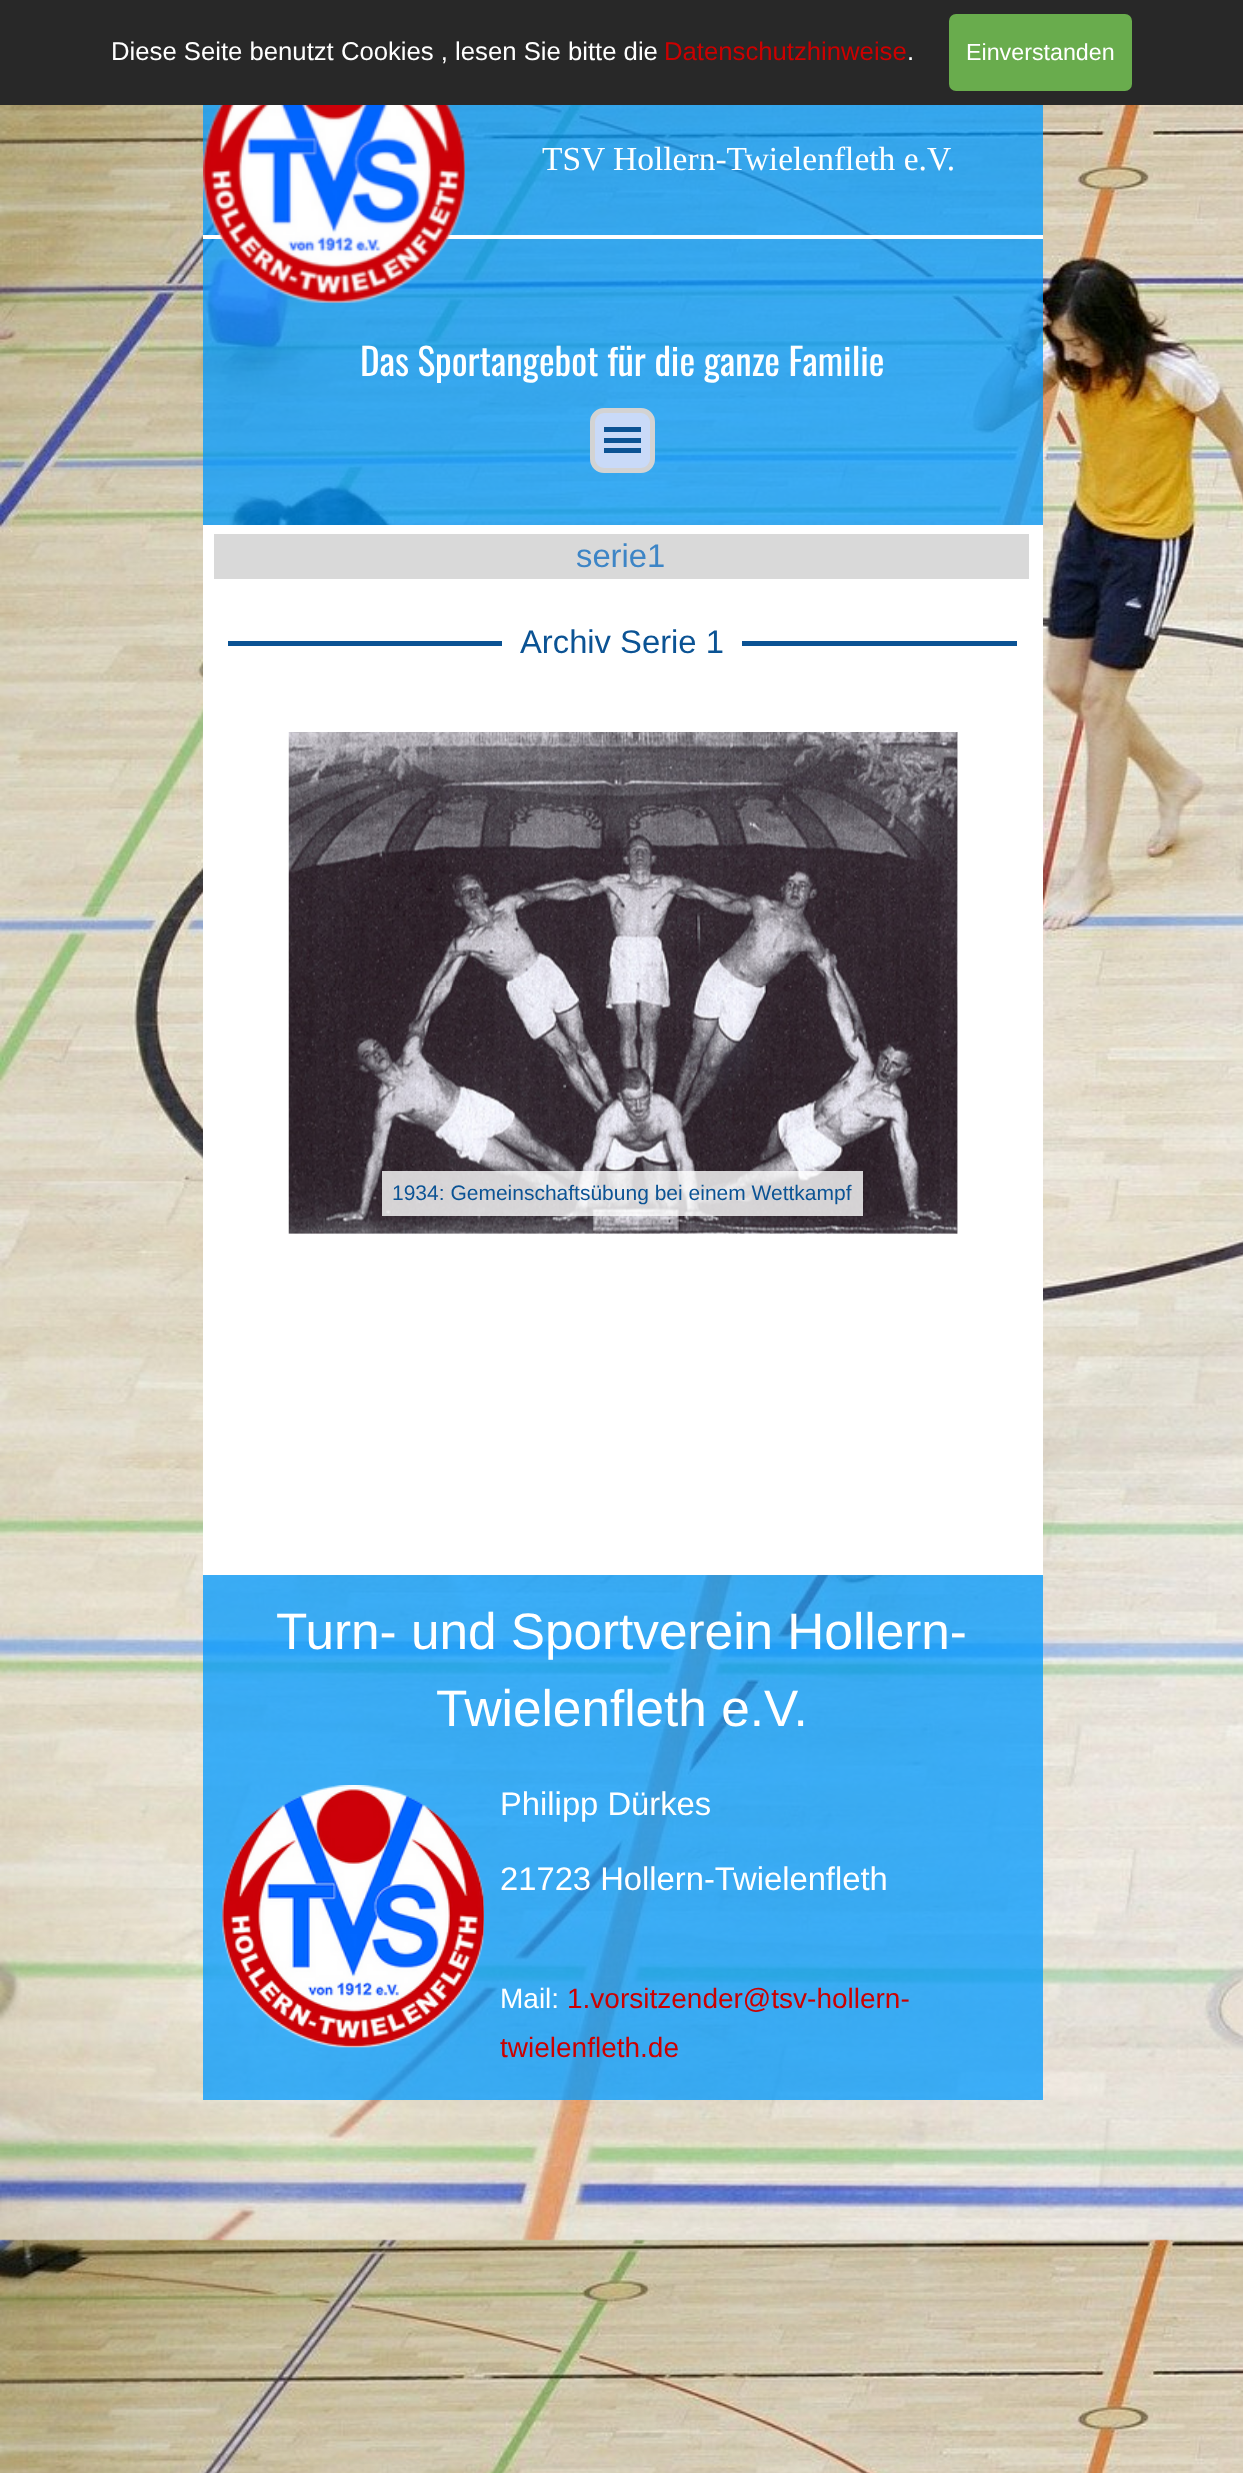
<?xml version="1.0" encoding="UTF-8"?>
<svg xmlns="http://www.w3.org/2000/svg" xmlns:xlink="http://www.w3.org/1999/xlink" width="1243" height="2473">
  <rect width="100%" height="100%" fill="#ffffff" />
  <rect width="1243" height="105" fill="#282828" />
  <rect x="949" y="14" width="183" height="77" rx="7" fill="#69ac4d" />
  <image x="0" y="105" width="1243" height="2368" xlink:href="image1.png" />
  <rect x="203" y="105" width="840" height="420" fill="#009aff" fill-opacity="0.75" />
  <rect x="203" y="235" width="840" height="4" fill="#ffffff" />
  <image x="203" y="105" width="262" height="198" xlink:href="image2.png" />
  <rect x="592.5" y="410.5" width="60" height="60" rx="11.5" fill="#c9daf8" stroke="#d3d3d3" stroke-width="5" />
  <rect x="604" y="427" width="37" height="5" fill="#0b5394" />
  <rect x="604" y="438" width="37" height="5" fill="#0b5394" />
  <rect x="604" y="448" width="37" height="5" fill="#0b5394" />
  <rect x="203" y="525" width="840" height="1050" fill="#ffffff" />
  <rect x="214" y="534" width="815" height="45" fill="#d9d9d9" />
  <rect x="228" y="641" width="274" height="5" fill="#0b5394" />
  <rect x="742" y="641" width="275" height="5" fill="#0b5394" />
  <image x="288" y="732" width="670" height="502" xlink:href="image3.png" />
  <rect x="382" y="1171" width="481" height="45" fill="#ffffff" fill-opacity="0.8" />
  <image x="956" y="732" width="2" height="502" xlink:href="image4.png" />
  <rect x="203" y="1575" width="840" height="525" fill="#009aff" fill-opacity="0.75" />
  <image x="222" y="1785" width="262" height="263" xlink:href="image5.png" />
  <text x="111" y="60" style="font-family: Liberation Sans; font-size: 25.7px; fill: #ffffff">Diese Seite benutzt Cookies , lesen Sie bitte die</text>
  <text x="664" y="60" style="font-family: Liberation Sans; font-size: 25.7px; fill: #cc0000">Datenschutzhinweise</text>
  <text x="907" y="60" style="font-family: Liberation Sans; font-size: 25.7px; fill: #ffffff">.</text>
  <text x="966" y="60" style="font-family: Liberation Sans; font-size: 23.25px; fill: #ffffff">Einverstanden</text>
  <text x="542" y="170" style="font-family: Liberation Serif; font-size: 33.5px; fill: #ffffff">TSV Hollern-Twielenfleth e.V.</text>
  <text x="360" y="376" style="font-family: Oswald; font-size: 37.3px; fill: #ffffff">Das Sportangebot für die ganze Familie</text>
  <text x="576" y="567" style="font-family: Liberation Sans; font-size: 32.75px; fill: #3d85c6">serie1</text>
  <text x="520" y="653" style="font-family: Liberation Sans; font-size: 32.75px; fill: #0b5394">Archiv Serie 1</text>
  <text x="392" y="1200" style="font-family: Liberation Sans; font-size: 21px; fill: #0b5394">1934: Gemeinschaftsübung bei einem Wettkampf</text>
  <text x="276" y="1649" style="font-family: Liberation Sans; font-size: 51.3px; fill: #ffffff">Turn- und Sportverein Hollern-</text>
  <text x="436" y="1726" style="font-family: Liberation Sans; font-size: 51.3px; fill: #ffffff">Twielenfleth e.V.</text>
  <text x="500" y="1815" style="font-family: Liberation Sans; font-size: 32.75px; fill: #ffffff">Philipp Dürkes</text>
  <text x="500" y="1890" style="font-family: Liberation Sans; font-size: 32.75px; fill: #ffffff">21723 Hollern-Twielenfleth</text>
  <text x="500" y="2008" style="font-family: Liberation Sans; font-size: 28px; fill: #ffffff">Mail:</text>
  <text x="567" y="2008" style="font-family: Liberation Sans; font-size: 28px; fill: #cc0000">1.vorsitzender@tsv-hollern-</text>
  <text x="500" y="2057" style="font-family: Liberation Sans; font-size: 28px; fill: #cc0000">twielenfleth.de</text>
</svg>
